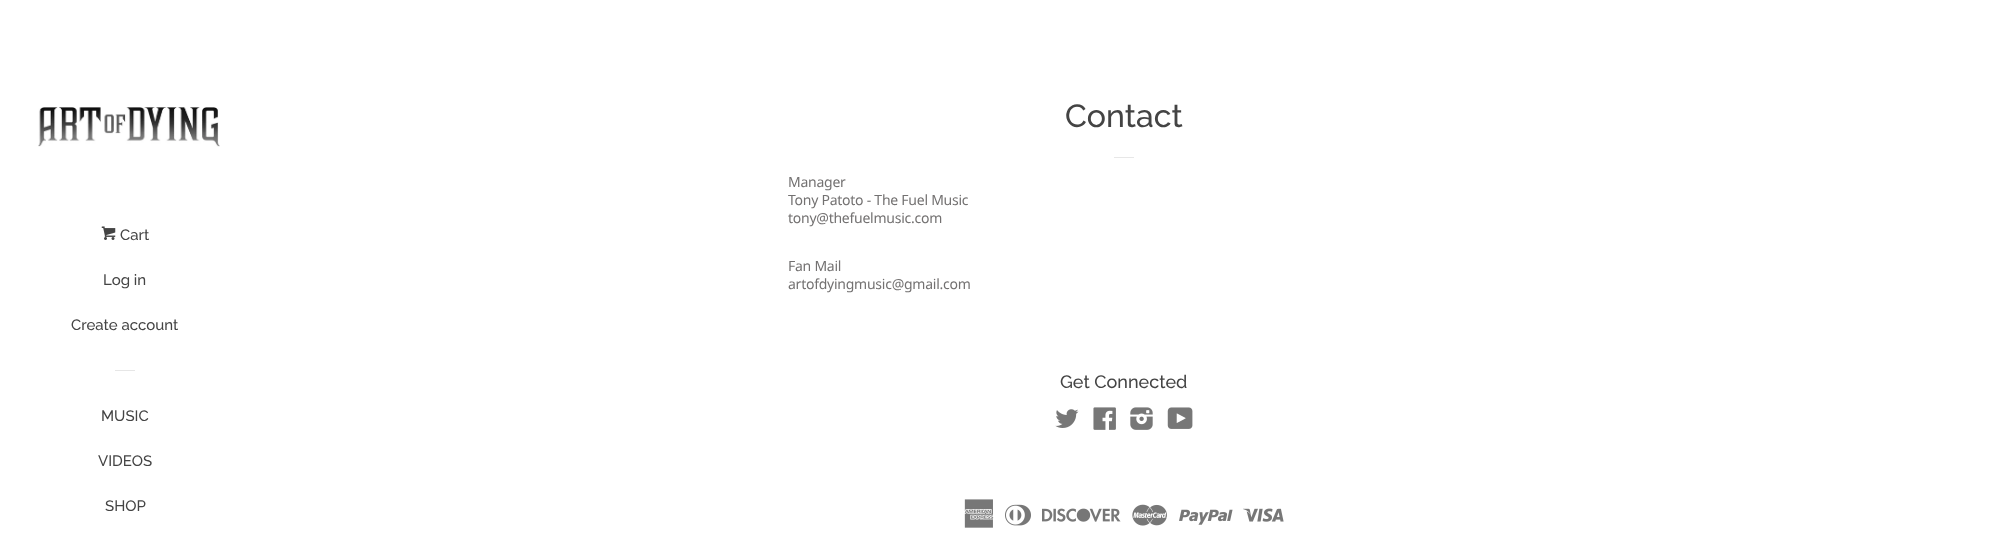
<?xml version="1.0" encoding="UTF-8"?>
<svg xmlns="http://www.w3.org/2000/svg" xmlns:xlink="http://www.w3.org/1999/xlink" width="1998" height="549">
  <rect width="100%" height="100%" fill="#ffffff" />
  <image x="38" y="107" width="182" height="40" xlink:href="image1.png" />
  <image x="101" y="226" width="15" height="14" xlink:href="image2.png" />
  <rect x="115" y="370" width="20" height="1" fill="#e6e6e6" />
  <rect x="1114" y="157" width="20" height="1" fill="#e7e7e7" />
  <image x="1055" y="409" width="24" height="19" xlink:href="image3.png" />
  <image x="1093" y="407" width="23" height="23" xlink:href="image4.png" />
  <image x="1130" y="407" width="23" height="23" xlink:href="image5.png" />
  <image x="1167" y="407" width="26" height="22" xlink:href="image6.png" />
  <image x="964" y="499" width="30" height="29" xlink:href="image7.png" />
  <image x="1005" y="504" width="26" height="22" xlink:href="image8.png" />
  <image x="1042" y="508" width="79" height="14" xlink:href="image9.png" />
  <image x="1132" y="504" width="35" height="22" xlink:href="image10.png" />
  <image x="1179" y="509" width="54" height="16" xlink:href="image11.png" />
  <image x="1243" y="508" width="41" height="14" xlink:href="image12.png" />
  <text x="120" y="240" style="font-family: Raleway; font-size: 15px; font-weight: 100; fill: #444444">Cart</text>
  <text x="103" y="285" style="font-family: Raleway; font-size: 15px; font-weight: 100; fill: #444444">Log in</text>
  <text x="71" y="330" style="font-family: Raleway; font-size: 15px; font-weight: 100; fill: #444444">Create account</text>
  <text x="101" y="421" style="font-family: Raleway; font-size: 15px; font-weight: 100; fill: #444444">MUSIC</text>
  <text x="98" y="466" style="font-family: Raleway; font-size: 15px; font-weight: 100; fill: #444444">VIDEOS</text>
  <text x="105" y="511" style="font-family: Raleway; font-size: 15px; font-weight: 100; fill: #444444">SHOP</text>
  <text x="1065" y="127" style="font-family: Raleway; font-size: 32px; font-weight: 100; fill: #444444">Contact</text>
  <text x="788" y="187" style="font-family: Noto Sans; font-size: 14px; letter-spacing: -0.25px; fill: #737171">Manager</text>
  <text x="788" y="205" style="font-family: Noto Sans; font-size: 14px; letter-spacing: -0.25px; fill: #737171">Tony Patoto - The Fuel Music</text>
  <text x="788" y="223" style="font-family: Noto Sans; font-size: 14px; letter-spacing: -0.25px; fill: #737171">tony@thefuelmusic.com</text>
  <text x="788" y="271" style="font-family: Noto Sans; font-size: 14px; letter-spacing: -0.25px; fill: #737171">Fan Mail</text>
  <text x="788" y="289" style="font-family: Noto Sans; font-size: 14px; letter-spacing: -0.25px; fill: #737171">artofdyingmusic@gmail.com</text>
  <text x="1060" y="388" style="font-family: Raleway; font-size: 18px; font-weight: 100; fill: #444444">Get Connected</text>
</svg>
